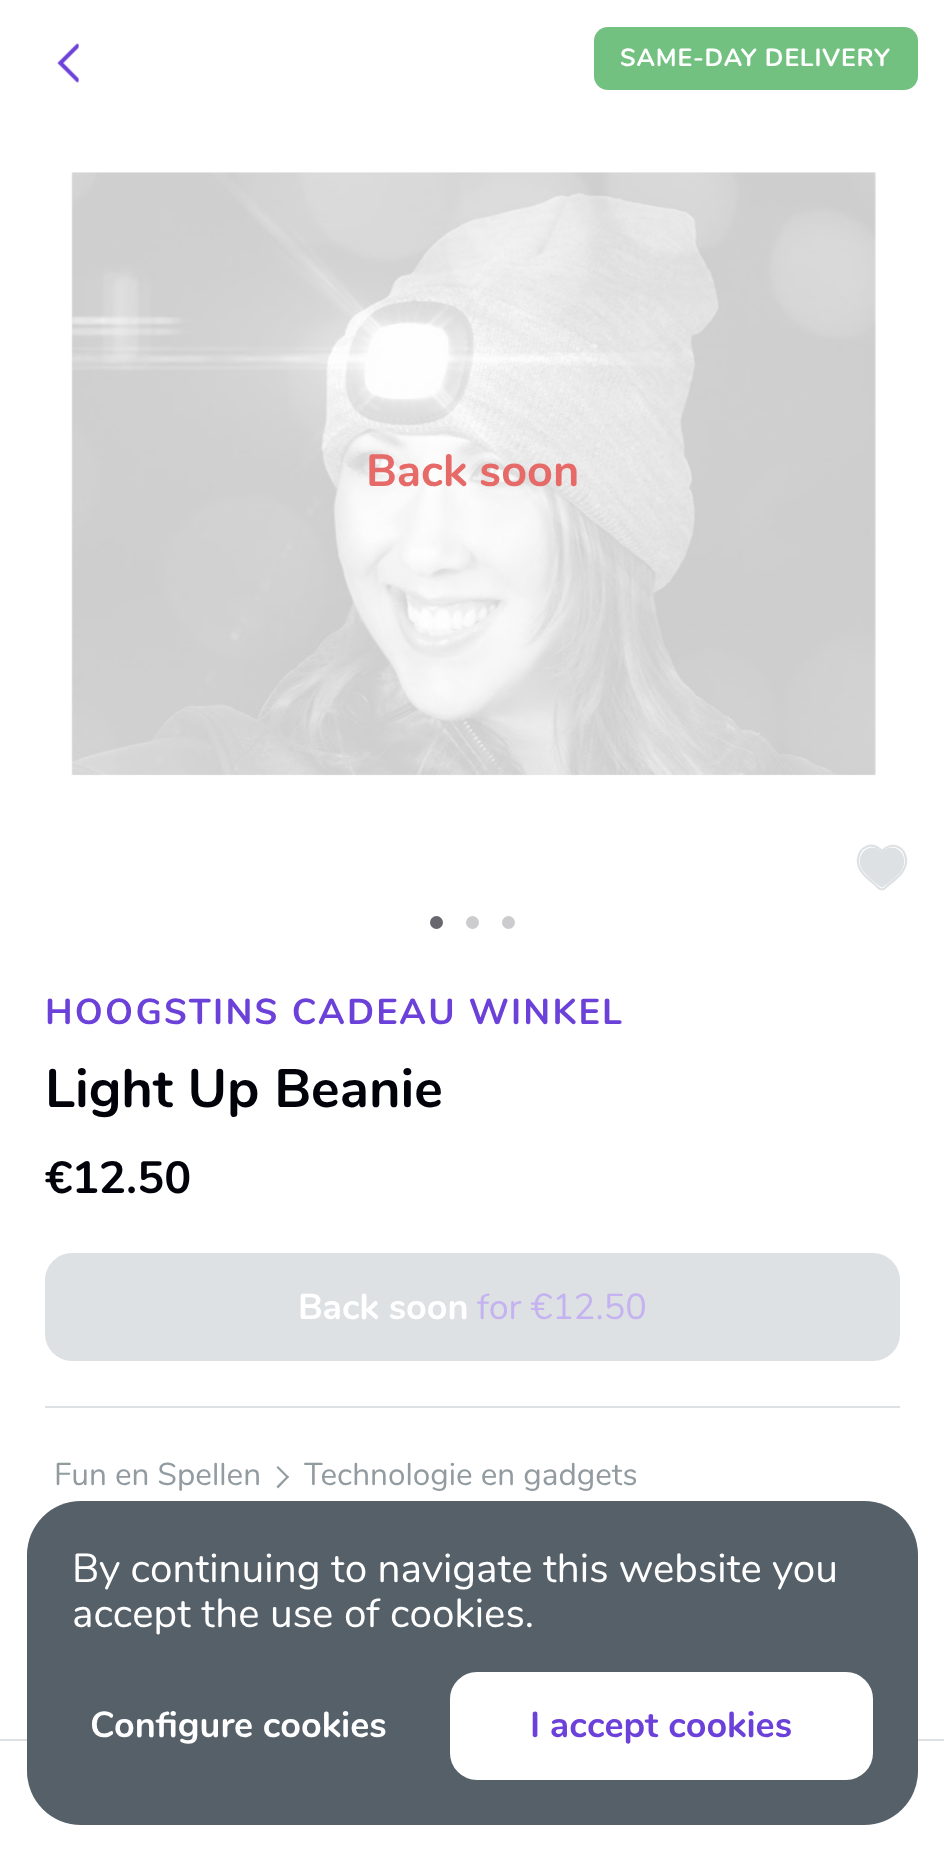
<?xml version="1.0" encoding="UTF-8"?>
<svg xmlns="http://www.w3.org/2000/svg" xmlns:xlink="http://www.w3.org/1999/xlink" width="944" height="1851">
  <rect width="100%" height="100%" fill="#ffffff" />
  <image x="57" y="43" width="22" height="40" xlink:href="image1.png" />
  <rect x="594" y="27" width="324" height="63" rx="14" fill="#73c181" />
  <image x="71" y="172" width="805" height="604" xlink:href="image2.png" />
  <circle cx="436.5" cy="922.5" r="6.5" fill="#67676d" />
  <circle cx="472.5" cy="922.5" r="6.5" fill="#ccccce" />
  <circle cx="508.5" cy="922.5" r="6.5" fill="#ccccce" />
  <image x="859" y="847" width="46" height="41" xlink:href="image3.png" />
  <path d="M 882.5 850.5 l -0.5 0.5 c -4.5 -4.5 -10 -7 -16 -4 c -3.5 1.5 -6 4.5 -7 8 c -5 12.5 6.5 22 15.5 29 c 2 2 4.5 5.5 7.5 5.5 c 2.5 0 5 -3.5 7 -5 c 9 -7 21 -16.5 16 -29.5 c -1 -3.5 -3.5 -6.5 -7 -8 c -6 -3 -11 -0.5 -15.5 3.5 z" fill="none" stroke="#dee1e3" stroke-width="2.2" />
  <rect x="46" y="1254" width="853" height="106" rx="26" fill="#dee1e3" stroke="#dee1e3" stroke-width="2" />
  <rect x="45" y="1406" width="855" height="2" fill="#dee1e3" />
  <path d="M 278 1466 l 11 11 l -1.5 1.5 l -11 -11 z" fill="#929ba0" />
  <path d="M 287.5 1475.5 l 1.5 1.5 l -11 11.5 l -1.5 -2 z" fill="#929ba0" />
  <rect y="1739" width="944" height="2" fill="#dee1e3" />
  <rect x="27" y="1501" width="891" height="324" rx="54" fill="#556068" />
  <rect x="451" y="1673" width="421" height="106" rx="26" fill="#ffffff" stroke="#ffffff" stroke-width="2" />
  <text x="620" y="66" style="font-family: Nunito; font-size: 24.75px; font-weight: bold; letter-spacing: 0.9px; fill: #ffffff">SAME-DAY DELIVERY</text>
  <text x="366" y="486" style="font-family: Nunito; font-size: 45px; font-weight: bold; fill: #e66a68">Back soon</text>
  <text x="45" y="1024" style="font-family: Nunito; font-size: 36px; font-weight: bold; letter-spacing: 2.25px; fill: #6c41d9">HOOGSTINS CADEAU WINKEL</text>
  <text x="45" y="1107" style="font-family: Nunito; font-size: 54px; font-weight: bold; fill: #02020b">Light Up Beanie</text>
  <text x="45" y="1193" style="font-family: Nunito; font-size: 45px; font-weight: bold; fill: #02020b">€12.50</text>
  <text x="298" y="1319" style="font-family: Nunito; font-size: 36px; font-weight: bold; fill: #ffffff">Back soon</text>
  <text x="477" y="1319" style="font-family: Nunito; font-size: 36px; fill: #c4b3f0">for €12.50</text>
  <text x="54" y="1485" style="font-family: Nunito; font-size: 31.5px; fill: #929ba0">Fun en Spellen</text>
  <text x="304" y="1485" style="font-family: Nunito; font-size: 31.5px; fill: #929ba0">Technologie en gadgets</text>
  <text x="72" y="1582" style="font-family: Nunito; font-size: 40.5px; fill: #ffffff">By continuing to navigate this website you</text>
  <text x="72" y="1627" style="font-family: Nunito; font-size: 40.5px; fill: #ffffff">accept the use of cookies.</text>
  <text x="90" y="1737" style="font-family: Nunito; font-size: 36px; font-weight: bold; fill: #ffffff">Configure cookies</text>
  <text x="530" y="1737" style="font-family: Nunito; font-size: 36px; font-weight: bold; fill: #6c41d9">I accept cookies</text>
</svg>
